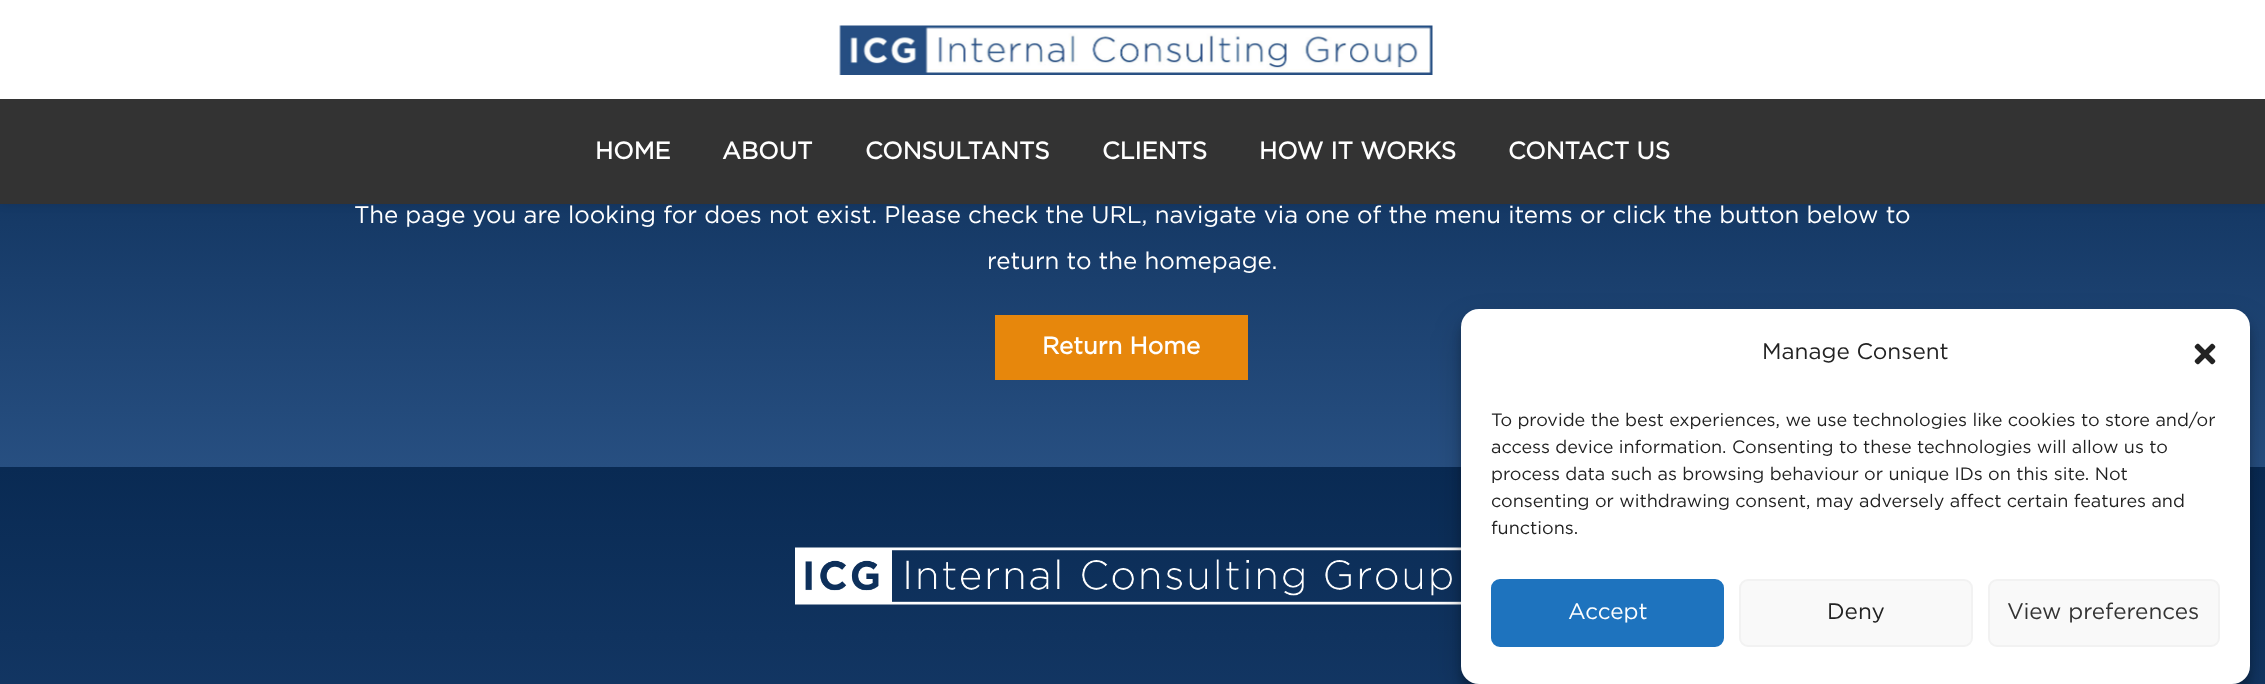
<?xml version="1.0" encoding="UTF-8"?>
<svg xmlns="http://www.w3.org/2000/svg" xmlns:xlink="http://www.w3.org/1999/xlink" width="2265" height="684">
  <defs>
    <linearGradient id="g1" gradientUnits="userSpaceOnUse" x1="1133" y1="37" x2="1133" y2="467"><stop offset="0" stop-color="#092a53" /><stop offset="1" stop-color="#274f81" /></linearGradient>
    <linearGradient id="g2" gradientUnits="userSpaceOnUse" x1="1133" y1="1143" x2="1133" y2="467"><stop offset="0" stop-color="#254e83" /><stop offset="1" stop-color="#092a53" /></linearGradient>
  </defs>
  <rect width="100%" height="100%" fill="#ffffff" />
  <rect y="204" width="2265" height="263" fill="url(#g1)" />
  <rect width="2265" height="204" fill="#000000" fill-opacity="0.1" filter="blur(5px)" />
  <rect width="2265" height="99" fill="#ffffff" />
  <image x="839" y="25" width="594" height="50" xlink:href="image1.png" />
  <rect y="99" width="2265" height="105" fill="#333333" />
  <rect x="995" y="315" width="253" height="65" fill="#e7870c" />
  <rect y="467" width="2265" height="217" fill="url(#g2)" />
  <image x="795" y="547" width="666" height="58" xlink:href="image2.png" />
  <rect x="1461" y="318" width="789" height="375" rx="18" fill="#000000" fill-opacity="0.23" filter="blur(4.5px)" />
  <rect x="1461" y="324" width="789" height="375" rx="18" fill="#000000" fill-opacity="0.19" filter="blur(15px)" />
  <rect x="1461" y="309" width="789" height="375" rx="18" fill="#ffffff" />
  <image x="2194" y="343" width="22" height="22" xlink:href="image3.png" />
  <rect x="1492" y="580" width="231" height="66" rx="8" fill="#1e73be" stroke="#1e73be" stroke-width="2" />
  <rect x="1740" y="580" width="232" height="66" rx="8" fill="#f9f9f9" stroke="#f2f2f2" stroke-width="2" />
  <rect x="1989" y="580" width="230" height="66" rx="8" fill="#f9f9f9" stroke="#f2f2f2" stroke-width="2" />
  <text x="595" y="159" style="font-family: Gotham; font-size: 24px; font-weight: bold; fill: #ffffff">HOME</text>
  <text x="722" y="159" style="font-family: Gotham; font-size: 24px; font-weight: bold; fill: #ffffff">ABOUT</text>
  <text x="865" y="159" style="font-family: Gotham; font-size: 24px; font-weight: bold; fill: #ffffff">CONSULTANTS</text>
  <text x="1102" y="159" style="font-family: Gotham; font-size: 24px; font-weight: bold; fill: #ffffff">CLIENTS</text>
  <text x="1259" y="159" style="font-family: Gotham; font-size: 24px; font-weight: bold; fill: #ffffff">HOW IT WORKS</text>
  <text x="1508" y="159" style="font-family: Gotham; font-size: 24px; font-weight: bold; fill: #ffffff">CONTACT US</text>
  <text x="354" y="223" style="font-family: Gotham; font-size: 24px; fill: #ffffff">The page you are looking for does not exist. Please check the URL, navigate via one of the menu items or click the button below to</text>
  <text x="987" y="269" style="font-family: Gotham; font-size: 24px; fill: #ffffff">return to the homepage.</text>
  <text x="1042" y="354" style="font-family: Gotham; font-size: 24px; font-weight: bold; fill: #ffffff">Return Home</text>
  <text x="1762" y="359" style="font-family: Gotham; font-size: 22.5px; fill: #222222">Manage Consent</text>
  <text x="1491" y="426" style="font-family: Gotham; font-size: 18px; fill: #222222">To provide the best experiences, we use technologies like cookies to store and/or</text>
  <text x="1491" y="453" style="font-family: Gotham; font-size: 18px; fill: #222222">access device information. Consenting to these technologies will allow us to</text>
  <text x="1491" y="480" style="font-family: Gotham; font-size: 18px; fill: #222222">process data such as browsing behaviour or unique IDs on this site. Not</text>
  <text x="1491" y="507" style="font-family: Gotham; font-size: 18px; fill: #222222">consenting or withdrawing consent, may adversely affect certain features and</text>
  <text x="1491" y="534" style="font-family: Gotham; font-size: 18px; fill: #222222">functions.</text>
  <text x="1568" y="619" style="font-family: Gotham; font-size: 22.5px; fill: #ffffff">Accept</text>
  <text x="1827" y="619" style="font-family: Gotham; font-size: 22.5px; fill: #222222">Deny</text>
  <text x="2007" y="619" style="font-family: Gotham; font-size: 22.5px; fill: #333333">View preferences</text>
</svg>
